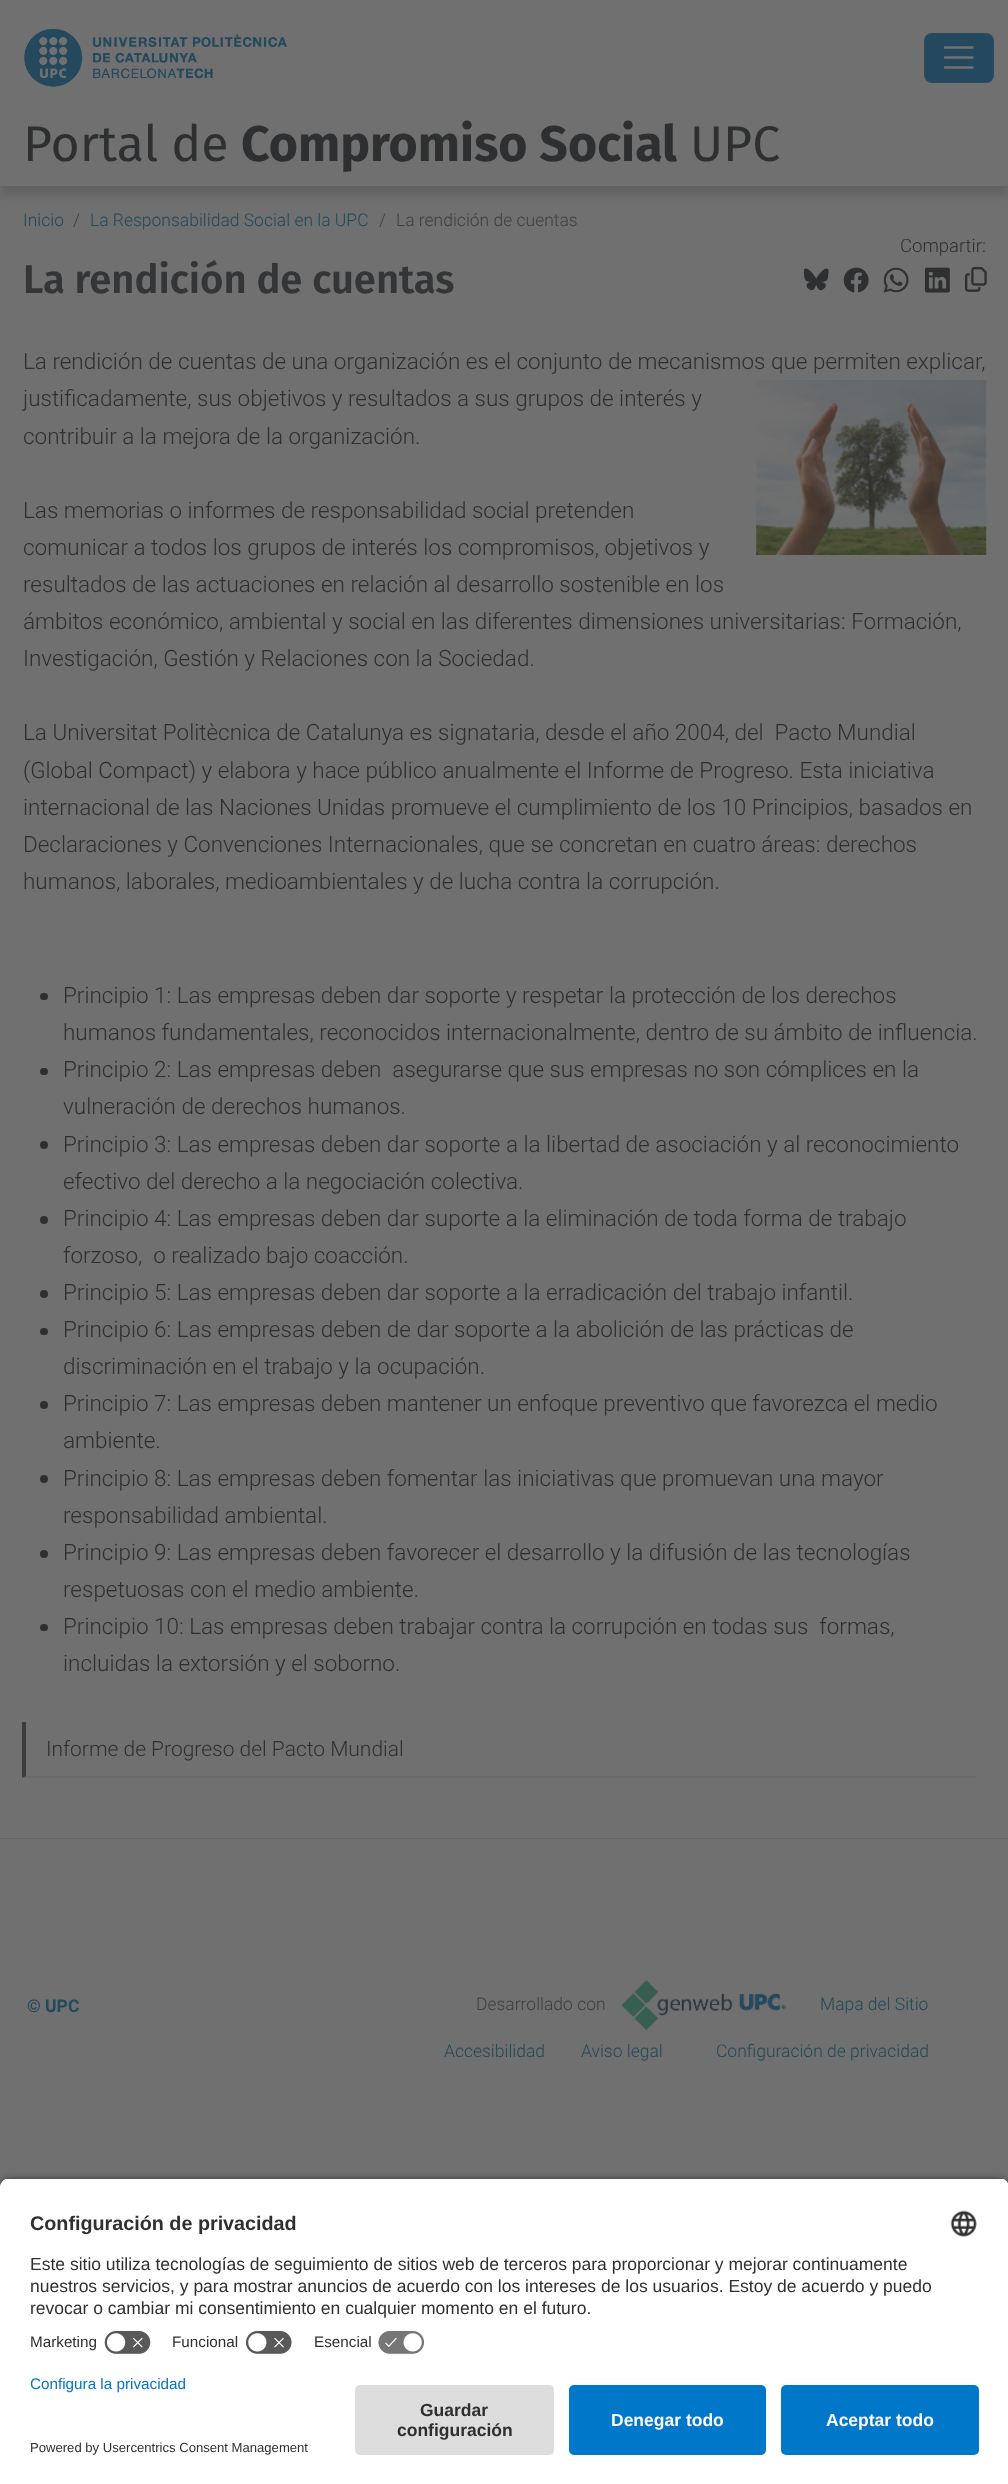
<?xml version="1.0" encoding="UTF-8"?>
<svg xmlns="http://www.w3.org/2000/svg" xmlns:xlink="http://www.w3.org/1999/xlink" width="1008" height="2484">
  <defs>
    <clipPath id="clip1"><rect x="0" y="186" width="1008" height="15" /></clipPath>
    <clipPath id="clip2"><path d="M 10 2178 h 989 c 5.5 0 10 4.5 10 10 v 187 h -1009 v -187 c 0 -5.5 4.5 -10 10 -10 z" /></clipPath>
  </defs>
  <rect width="100%" height="100%" fill="#707070" />
  <image x="24" y="29" width="263" height="58" xlink:href="image1.png" />
  <rect x="924" y="33" width="70" height="50" rx="8" fill="#24495e" />
  <rect x="924.5" y="33.5" width="69" height="49" rx="7.5" fill="none" stroke="#707070" stroke-opacity="0.1" />
  <path d="M 945 47.5 h 27.5 m -27.5 10 h 27.5 m -27.5 10 h 27.5" fill="none" stroke="#707070" stroke-width="2.5" stroke-linecap="round" />
  <g clip-path="url(#clip1)">
    <rect y="124" width="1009" height="71" fill="#242424" fill-opacity="0.2" filter="blur(5px)" />
  </g>
  <image x="803" y="268" width="26" height="23" xlink:href="image2.png" />
  <image x="843" y="267" width="26" height="26" xlink:href="image3.png" />
  <image x="883" y="267" width="26" height="26" xlink:href="image4.png" />
  <image x="925" y="267" width="25" height="26" xlink:href="image5.png" />
  <image x="965" y="267" width="22" height="25" xlink:href="image6.png" />
  <image x="756" y="380" width="231" height="175" xlink:href="image7.png" />
  <rect x="40" y="993" width="8" height="7" rx="3.5" fill="#2e2f30" />
  <rect x="40" y="1068" width="8" height="7" rx="3.5" fill="#2e2f30" />
  <circle cx="44" cy="1145" r="4" fill="#2e2f30" />
  <circle cx="44" cy="1220" r="4" fill="#2e2f30" />
  <circle cx="44" cy="1294" r="4" fill="#2e2f30" />
  <rect x="40" y="1328" width="8" height="7" rx="3.5" fill="#2e2f30" />
  <circle cx="44" cy="1405" r="4" fill="#2e2f30" />
  <circle cx="44" cy="1479" r="4" fill="#2e2f30" />
  <circle cx="44" cy="1554" r="4" fill="#2e2f30" />
  <rect x="40" y="1624" width="8" height="7" rx="3.5" fill="#2e2f30" />
  <path d="M 976 1778 h -954 l 4 -2 h 950 z" fill="#666869" />
  <path d="M 22 1778 v -56 h 4 v 54 z" fill="#3a3c3e" />
  <rect y="1838" width="1008" height="1" fill="#666869" />
  <image x="621" y="1980" width="166" height="50" xlink:href="image8.png" />
  <rect y="2181" width="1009" height="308" rx="10" fill="#000000" fill-opacity="0.8" filter="blur(4.5px)" />
  <g clip-path="url(#clip2)">
    <rect y="2179" width="1008" height="196" fill="#ffffff" />
    <rect y="2179" width="1008" height="146" fill="#ffffff" />
  </g>
  <image x="950" y="2210" width="27" height="27" xlink:href="image9.png" />
  <image x="104" y="2330" width="47" height="25" xlink:href="image10.png" />
  <image x="245" y="2330" width="48" height="25" xlink:href="image11.png" />
  <image x="377" y="2330" width="48" height="25" xlink:href="image12.png" />
  <rect y="2375" width="1008" height="109" fill="#ffffff" />
  <rect x="355" y="2385" width="199" height="70" rx="5" fill="#dddddd" />
  <rect x="569" y="2385" width="197" height="70" rx="5" fill="#0077c8" />
  <rect x="781" y="2385" width="198" height="70" rx="5" fill="#0077c8" />
  <text x="23" y="161" style="font-family: Fira Sans; font-size: 50px; fill: #2e2f30">Portal de</text>
  <text x="241" y="161" style="font-family: Fira Sans; font-size: 50px; font-weight: bold; fill: #2e2f30">Compromiso Social</text>
  <text x="690" y="161" style="font-family: Fira Sans; font-size: 50px; fill: #2e2f30">UPC</text>
  <text x="23" y="226" style="font-family: Roboto; font-size: 17.5px; font-weight: 300; fill: #244959">Inicio</text>
  <text x="73" y="226" style="font-family: Roboto; font-size: 17.5px; font-weight: 300; fill: #3e3f40">/</text>
  <text x="90" y="226" style="font-family: Roboto; font-size: 17.5px; font-weight: 300; fill: #244959">La Responsabilidad Social en la UPC</text>
  <text x="379" y="226" style="font-family: Roboto; font-size: 17.5px; font-weight: 300; fill: #3e3f40">/</text>
  <text x="396" y="226" style="font-family: Roboto; font-size: 17.5px; font-weight: 300; fill: #3e3f40">La rendición de cuentas</text>
  <text x="900" y="252" style="font-family: Roboto; font-size: 18.5px; font-weight: 300; fill: #2e2f30">Compartir:</text>
  <text x="23" y="293" style="font-family: Fira Sans; font-size: 40px; font-weight: 600; fill: #333537">La rendición de cuentas</text>
  <text x="23" y="369" style="font-family: Roboto; font-size: 22.5px; font-weight: 300; fill: #2e2f30">La rendición de cuentas de una organización es el conjunto de mecanismos que permiten explicar,</text>
  <text x="23" y="406" style="font-family: Roboto; font-size: 22.5px; font-weight: 300; fill: #2e2f30">justificadamente, sus objetivos y resultados a sus grupos de interés y</text>
  <text x="23" y="444" style="font-family: Roboto; font-size: 22.5px; font-weight: 300; fill: #2e2f30">contribuir a la mejora de la organización.</text>
  <text x="23" y="518" style="font-family: Roboto; font-size: 22.5px; font-weight: 300; fill: #2e2f30">Las memorias o informes de responsabilidad social pretenden</text>
  <text x="23" y="555" style="font-family: Roboto; font-size: 22.5px; font-weight: 300; fill: #2e2f30">comunicar a todos los grupos de interés los compromisos, objetivos y</text>
  <text x="23" y="592" style="font-family: Roboto; font-size: 22.5px; font-weight: 300; fill: #2e2f30">resultados de las actuaciones en relación al desarrollo sostenible en los</text>
  <text x="23" y="629" style="font-family: Roboto; font-size: 22.5px; font-weight: 300; fill: #2e2f30">ámbitos económico, ambiental y social en las diferentes dimensiones universitarias: Formación,</text>
  <text x="23" y="666" style="font-family: Roboto; font-size: 22.5px; font-weight: 300; fill: #2e2f30">Investigación, Gestión y Relaciones con la Sociedad.</text>
  <text x="23" y="740" style="font-family: Roboto; font-size: 22.5px; font-weight: 300; fill: #2e2f30" xml:space="preserve">La Universitat Politècnica de Catalunya es signataria, desde el año 2004, del  Pacto Mundial</text>
  <text x="23" y="778" style="font-family: Roboto; font-size: 22.5px; font-weight: 300; fill: #2e2f30">(Global Compact) y elabora y hace público anualmente el Informe de Progreso. Esta iniciativa</text>
  <text x="23" y="815" style="font-family: Roboto; font-size: 22.5px; font-weight: 300; fill: #2e2f30">internacional de las Naciones Unidas promueve el cumplimiento de los 10 Principios, basados en</text>
  <text x="23" y="852" style="font-family: Roboto; font-size: 22.5px; font-weight: 300; fill: #2e2f30">Declaraciones y Convenciones Internacionales, que se concretan en cuatro áreas: derechos</text>
  <text x="23" y="889" style="font-family: Roboto; font-size: 22.5px; font-weight: 300; fill: #2e2f30">humanos, laborales, medioambientales y de lucha contra la corrupción.</text>
  <text x="63" y="1003" style="font-family: Roboto; font-size: 22.5px; font-weight: 300; fill: #2e2f30">Principio 1: Las empresas deben dar soporte y respetar la protección de los derechos</text>
  <text x="63" y="1040" style="font-family: Roboto; font-size: 22.5px; font-weight: 300; fill: #2e2f30">humanos fundamentales, reconocidos internacionalmente, dentro de su ámbito de influencia.</text>
  <text x="63" y="1077" style="font-family: Roboto; font-size: 22.5px; font-weight: 300; fill: #2e2f30" xml:space="preserve">Principio 2: Las empresas deben  asegurarse que sus empresas no son cómplices en la</text>
  <text x="63" y="1114" style="font-family: Roboto; font-size: 22.5px; font-weight: 300; fill: #2e2f30">vulneración de derechos humanos.</text>
  <text x="63" y="1152" style="font-family: Roboto; font-size: 22.5px; font-weight: 300; fill: #2e2f30">Principio 3: Las empresas deben dar soporte a la libertad de asociación y al reconocimiento</text>
  <text x="63" y="1189" style="font-family: Roboto; font-size: 22.5px; font-weight: 300; fill: #2e2f30">efectivo del derecho a la negociación colectiva.</text>
  <text x="63" y="1226" style="font-family: Roboto; font-size: 22.5px; font-weight: 300; fill: #2e2f30">Principio 4: Las empresas deben dar suporte a la eliminación de toda forma de trabajo</text>
  <text x="63" y="1263" style="font-family: Roboto; font-size: 22.5px; font-weight: 300; fill: #2e2f30" xml:space="preserve">forzoso,  o realizado bajo coacción.</text>
  <text x="63" y="1300" style="font-family: Roboto; font-size: 22.5px; font-weight: 300; fill: #2e2f30">Principio 5: Las empresas deben dar soporte a la erradicación del trabajo infantil.</text>
  <text x="63" y="1337" style="font-family: Roboto; font-size: 22.5px; font-weight: 300; fill: #2e2f30">Principio 6: Las empresas deben de dar soporte a la abolición de las prácticas de</text>
  <text x="63" y="1374" style="font-family: Roboto; font-size: 22.5px; font-weight: 300; fill: #2e2f30">discriminación en el trabajo y la ocupación.</text>
  <text x="63" y="1411" style="font-family: Roboto; font-size: 22.5px; font-weight: 300; fill: #2e2f30">Principio 7: Las empresas deben mantener un enfoque preventivo que favorezca el medio</text>
  <text x="63" y="1448" style="font-family: Roboto; font-size: 22.5px; font-weight: 300; fill: #2e2f30">ambiente.</text>
  <text x="63" y="1486" style="font-family: Roboto; font-size: 22.5px; font-weight: 300; fill: #2e2f30">Principio 8: Las empresas deben fomentar las iniciativas que promuevan una mayor</text>
  <text x="63" y="1523" style="font-family: Roboto; font-size: 22.5px; font-weight: 300; fill: #2e2f30">responsabilidad ambiental.</text>
  <text x="63" y="1560" style="font-family: Roboto; font-size: 22.5px; font-weight: 300; fill: #2e2f30">Principio 9: Las empresas deben favorecer el desarrollo y la difusión de las tecnologías</text>
  <text x="63" y="1597" style="font-family: Roboto; font-size: 22.5px; font-weight: 300; fill: #2e2f30">respetuosas con el medio ambiente.</text>
  <text x="63" y="1634" style="font-family: Roboto; font-size: 22.5px; font-weight: 300; fill: #2e2f30" xml:space="preserve">Principio 10: Las empresas deben trabajar contra la corrupción en todas sus  formas,</text>
  <text x="63" y="1671" style="font-family: Roboto; font-size: 22.5px; font-weight: 300; fill: #2e2f30">incluidas la extorsión y el soborno.</text>
  <text x="46" y="1756" style="font-family: Roboto; font-size: 21px; font-weight: 300; fill: #2e2f30">Informe de Progreso del Pacto Mundial</text>
  <text x="27" y="2012" style="font-family: Roboto; font-size: 17.5px; font-weight: bold; fill: #244959">© UPC</text>
  <text x="476" y="2010" style="font-family: Roboto; font-size: 17.5px; font-weight: 300; fill: #3e3f40">Desarrollado con</text>
  <text x="820" y="2010" style="font-family: Roboto; font-size: 17.5px; font-weight: 300; fill: #244959">Mapa del Sitio</text>
  <text x="444" y="2057" style="font-family: Roboto; font-size: 17.5px; font-weight: 300; fill: #244959">Accesibilidad</text>
  <text x="581" y="2057" style="font-family: Roboto; font-size: 17.5px; font-weight: 300; fill: #244959">Aviso legal</text>
  <text x="716" y="2057" style="font-family: Roboto; font-size: 17.5px; font-weight: 300; fill: #244959">Configuración de privacidad</text>
  <text x="30" y="2230" style="font-family: Liberation Sans; font-size: 19.75px; font-weight: bold; fill: #2e2f30">Configuración de privacidad</text>
  <text x="30" y="2270" style="font-family: Liberation Sans; font-size: 17.5px; fill: #2e2f30">Este sitio utiliza tecnologías de seguimiento de sitios web de terceros para proporcionar y mejorar continuamente</text>
  <text x="30" y="2292" style="font-family: Liberation Sans; font-size: 17.5px; fill: #2e2f30">nuestros servicios, y para mostrar anuncios de acuerdo con los intereses de los usuarios. Estoy de acuerdo y puedo</text>
  <text x="30" y="2314" style="font-family: Liberation Sans; font-size: 17.5px; fill: #2e2f30">revocar o cambiar mi consentimiento en cualquier momento en el futuro.</text>
  <text x="30" y="2347" style="font-family: Liberation Sans; font-size: 15.25px; fill: #2e2f30">Marketing</text>
  <text x="172" y="2347" style="font-family: Liberation Sans; font-size: 15.25px; fill: #2e2f30">Funcional</text>
  <text x="314" y="2347" style="font-family: Liberation Sans; font-size: 15.25px; fill: #2e2f30">Esencial</text>
  <text x="30" y="2389" style="font-family: Liberation Sans; font-size: 15.25px; fill: #0077c8">Configura la privacidad</text>
  <text x="30" y="2452" style="font-family: Liberation Sans; font-size: 13.1px; fill: #2e2f30">Powered by Usercentrics Consent Management</text>
  <text x="420" y="2416" style="font-family: Liberation Sans; font-size: 17.5px; font-weight: bold; fill: #2e2f30">Guardar</text>
  <text x="397" y="2436" style="font-family: Liberation Sans; font-size: 17.5px; font-weight: bold; fill: #2e2f30">configuración</text>
  <text x="611" y="2426" style="font-family: Liberation Sans; font-size: 17.5px; font-weight: bold; fill: #fafafa">Denegar todo</text>
  <text x="826" y="2426" style="font-family: Liberation Sans; font-size: 17.5px; font-weight: bold; fill: #fafafa">Aceptar todo</text>
</svg>
